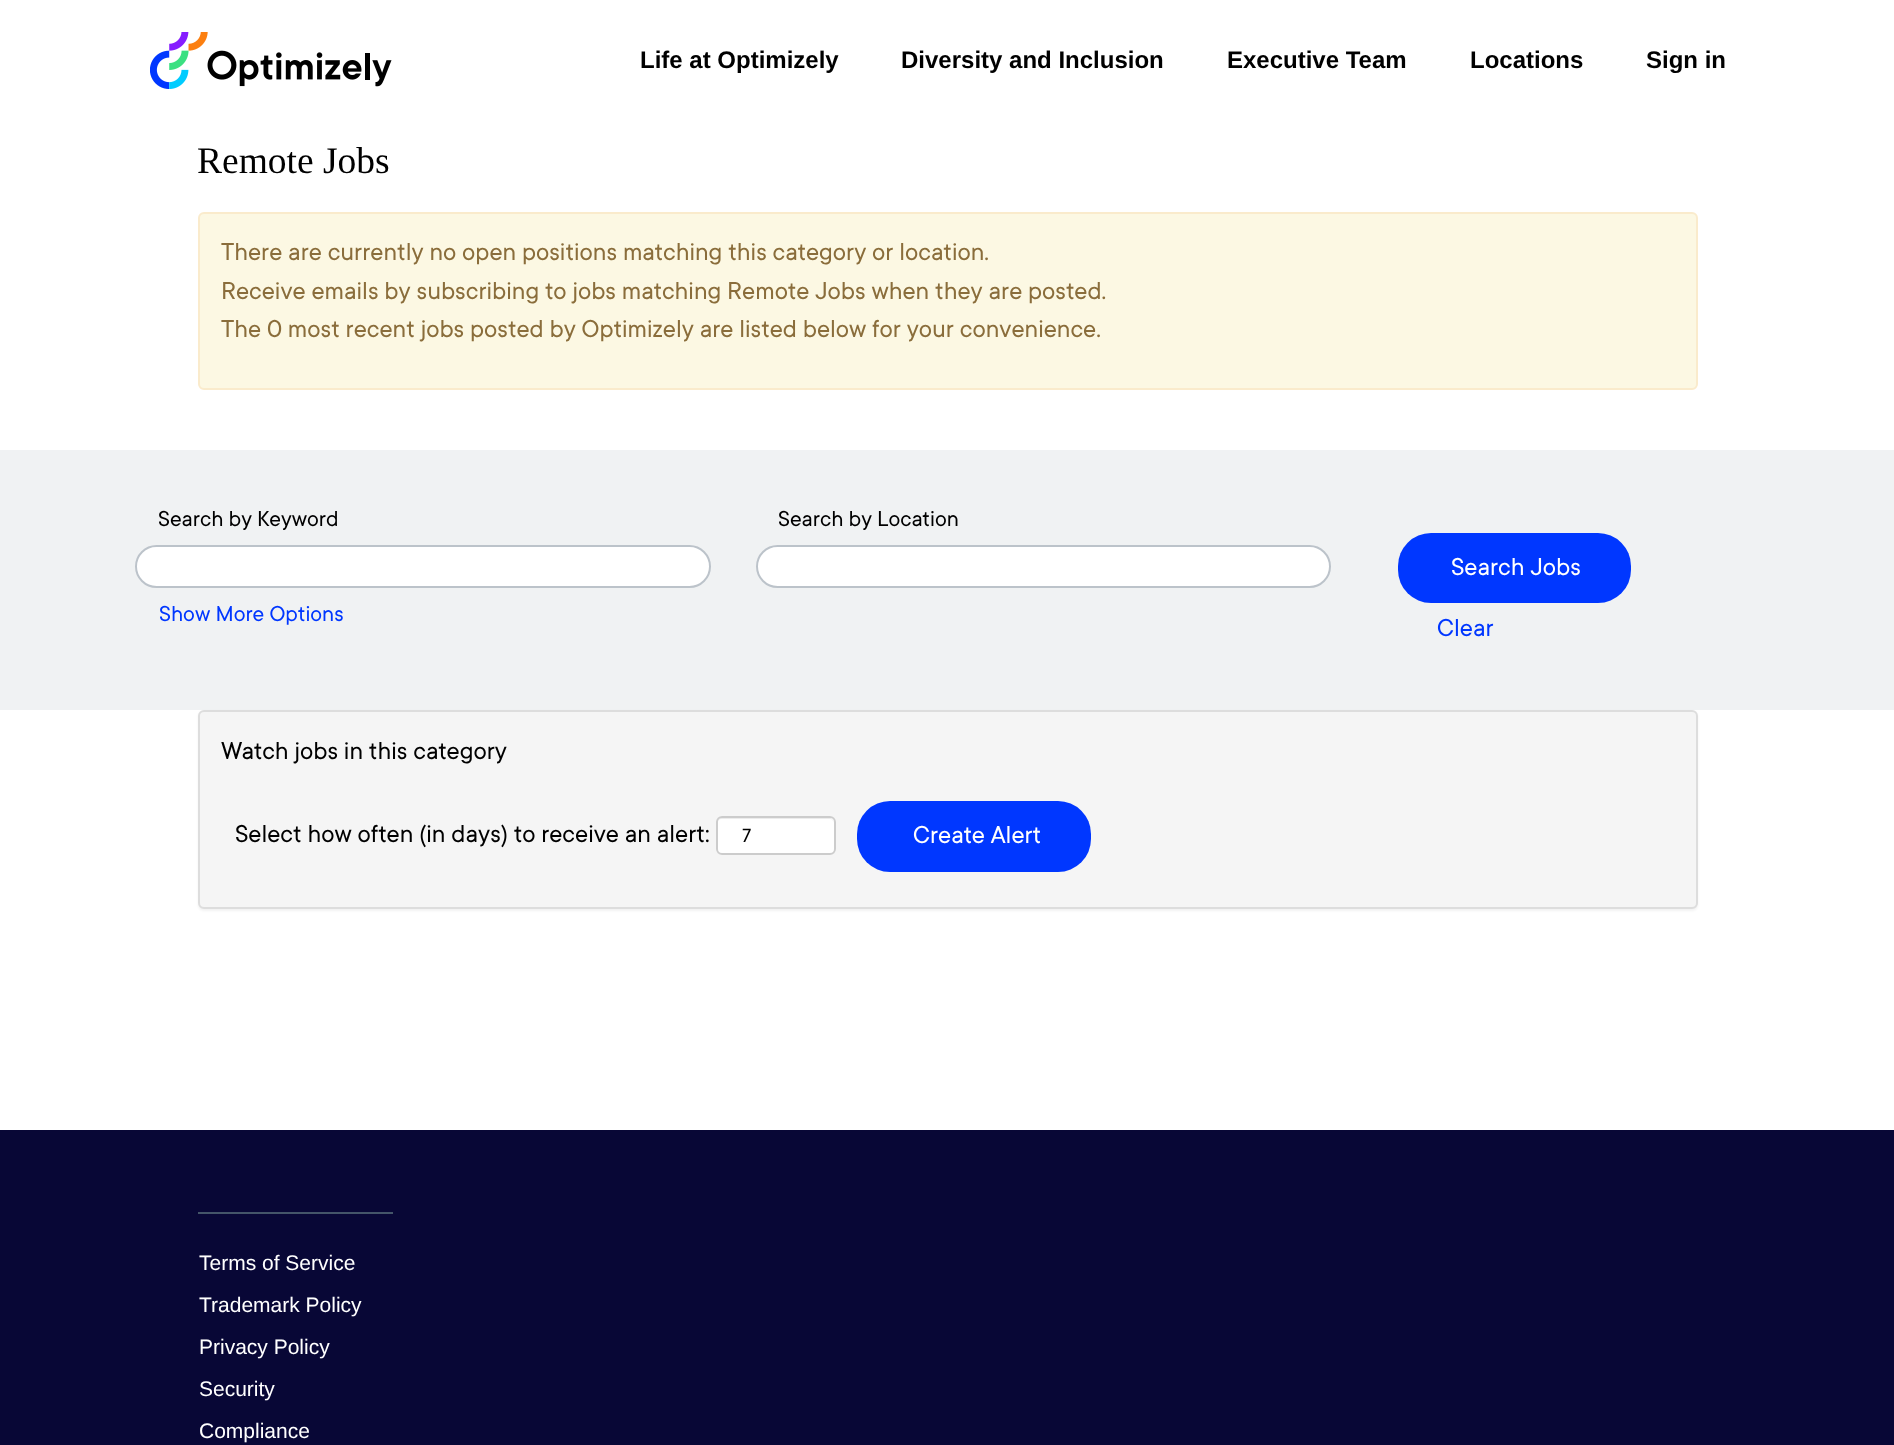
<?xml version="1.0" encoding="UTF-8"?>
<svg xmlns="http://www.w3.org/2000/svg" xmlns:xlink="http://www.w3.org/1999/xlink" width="1894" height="1445">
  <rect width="100%" height="100%" fill="#ffffff" />
  <image x="150" y="32" width="242" height="57" xlink:href="image1.png" />
  <rect x="199" y="213" width="1498" height="176" rx="5" fill="#fcf8e3" stroke="#faebcc" stroke-width="2" />
  <rect y="450" width="1894" height="260" fill="#f0f2f3" />
  <rect x="136" y="546" width="574" height="41" rx="20.5" fill="#ffffff" stroke="#bcc3ca" stroke-width="2" />
  <rect x="757" y="546" width="573" height="41" rx="20.5" fill="#ffffff" stroke="#bcc3ca" stroke-width="2" />
  <rect x="1398" y="533" width="233" height="70" rx="33" fill="#0037ff" />
  <rect x="198" y="711" width="1500" height="200" rx="6" fill="#000000" fill-opacity="0.05" filter="blur(1px)" />
  <rect x="199" y="711" width="1498" height="197" rx="5" fill="#f5f5f5" stroke="#dddddd" stroke-width="2" />
  <rect x="716" y="816" width="120" height="39" rx="6" fill="#ffffff" />
  <path d="M 722 819 h 108 c 2 0 4 2 4 5 c 0 -11 -18 -6 -23 -6 h -71 c -5 0 -23 -5 -23 6 c 0 -3 2 -5 5 -5 z" fill="#ececec" />
  <rect x="717" y="817" width="118" height="37" rx="5" fill="none" stroke="#cccccc" stroke-width="2" />
  <rect x="857" y="801" width="234" height="71" rx="33" fill="#0037ff" />
  <rect y="1130" width="1894" height="315" fill="#080736" />
  <rect x="198" y="1212" width="195" height="2" fill="#445569" />
  <text x="640" y="68" style="font-family: Liberation Sans; font-size: 24px; font-weight: bold; fill: #000000">Life at Optimizely</text>
  <text x="901" y="68" style="font-family: Liberation Sans; font-size: 24px; font-weight: bold; fill: #000000">Diversity and Inclusion</text>
  <text x="1227" y="68" style="font-family: Liberation Sans; font-size: 24px; font-weight: bold; fill: #000000">Executive Team</text>
  <text x="1470" y="68" style="font-family: Liberation Sans; font-size: 24px; font-weight: bold; fill: #000000">Locations</text>
  <text x="1646" y="68" style="font-family: Liberation Sans; font-size: 24px; font-weight: bold; fill: #000000">Sign in</text>
  <text x="197" y="173" style="font-family: Liberation Serif; font-size: 37.5px; fill: #000000">Remote Jobs</text>
  <text x="221" y="260" style="font-family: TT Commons; font-size: 27px; fill: #8a6d3b">There are currently no open positions matching this category or location.</text>
  <text x="221" y="299" style="font-family: TT Commons; font-size: 27px; fill: #8a6d3b">Receive emails by subscribing to jobs matching Remote Jobs when they are posted.</text>
  <text x="221" y="337" style="font-family: TT Commons; font-size: 27px; fill: #8a6d3b">The 0 most recent jobs posted by Optimizely are listed below for your convenience.</text>
  <text x="158" y="526" style="font-family: TT Commons; font-size: 24px; fill: #000000">Search by Keyword</text>
  <text x="778" y="526" style="font-family: TT Commons; font-size: 24px; fill: #000000">Search by Location</text>
  <text x="159" y="621" style="font-family: TT Commons; font-size: 24px; fill: #0037ff">Show More Options</text>
  <text x="1451" y="575" style="font-family: TT Commons; font-size: 27px; fill: #ffffff">Search Jobs</text>
  <text x="1437" y="636" style="font-family: TT Commons; font-size: 27px; fill: #0037ff">Clear</text>
  <text x="221" y="759" style="font-family: TT Commons; font-size: 27px; fill: #000000">Watch jobs in this category</text>
  <text x="235" y="842" style="font-family: TT Commons; font-size: 27px; fill: #000000">Select how often (in days) to receive an alert:</text>
  <text x="742" y="842" style="font-family: TT Commons; font-size: 21px; fill: #000000">7</text>
  <text x="913" y="843" style="font-family: TT Commons; font-size: 27px; fill: #ffffff">Create Alert</text>
  <text x="199" y="1270" style="font-family: Liberation Sans; font-size: 21px; fill: #ffffff">Terms of Service</text>
  <text x="199" y="1312" style="font-family: Liberation Sans; font-size: 21px; fill: #ffffff">Trademark Policy</text>
  <text x="199" y="1354" style="font-family: Liberation Sans; font-size: 21px; fill: #ffffff">Privacy Policy</text>
  <text x="199" y="1396" style="font-family: Liberation Sans; font-size: 21px; fill: #ffffff">Security</text>
  <text x="199" y="1438" style="font-family: Liberation Sans; font-size: 21px; fill: #ffffff">Compliance</text>
</svg>
